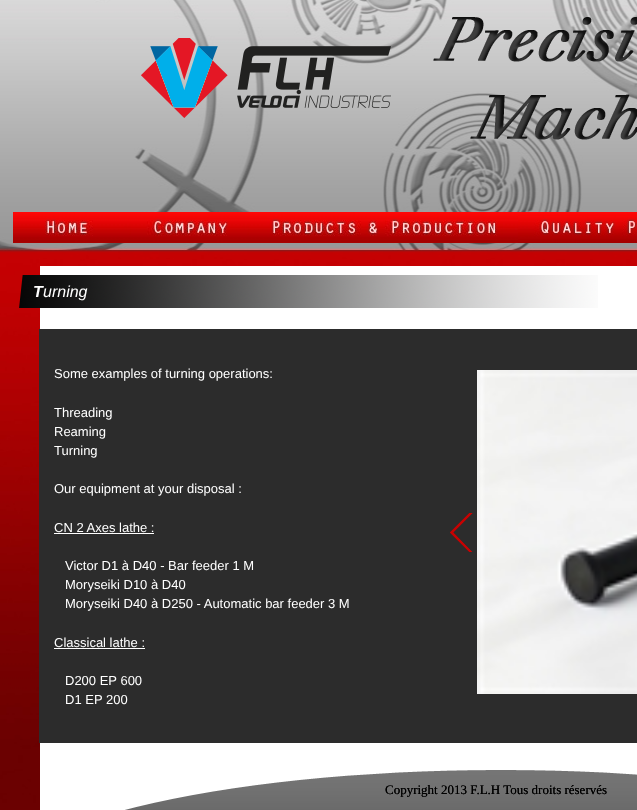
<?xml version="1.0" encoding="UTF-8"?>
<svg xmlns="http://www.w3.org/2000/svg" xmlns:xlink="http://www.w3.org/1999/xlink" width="637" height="810">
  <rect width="100%" height="100%" fill="#ffffff" />
  <image x="0" y="0" width="637" height="810" xlink:href="image1.png" />
  <image x="141" y="38" width="250" height="80" xlink:href="image2.png" />
  <image x="433" y="17" width="204" height="123" xlink:href="image3.png" />
  <image x="13" y="212" width="118" height="31" xlink:href="image4.png" />
  <image x="131" y="212" width="118" height="31" xlink:href="image5.png" />
  <image x="249" y="212" width="269" height="31" xlink:href="image6.png" />
  <image x="518" y="212" width="119" height="31" xlink:href="image7.png" />
  <rect x="40" y="266" width="597" height="500" fill="#ffffff" />
  <image x="19" y="275" width="579" height="33" xlink:href="image8.png" />
  <rect x="39" y="329" width="598" height="414" fill="#2c2c2c" />
  <rect x="54" y="533" width="100" height="1" fill="#ffffff" />
  <rect x="54" y="648" width="91" height="1" fill="#ffffff" />
  <image x="450" y="513" width="23" height="39" xlink:href="image11.png" />
  <image x="450" y="513" width="23" height="39" xlink:href="image9.png" />
  <image x="477" y="370" width="160" height="324" xlink:href="image10.png" />
  <image x="40" y="766" width="597" height="44" xlink:href="image12.png" />
  <text x="33" y="297" style="font-family: Liberation Sans; font-size: 16px; font-weight: bold; font-style: italic; fill: #ffffff">T</text>
  <text x="43" y="297" style="font-family: Liberation Sans; font-size: 16px; font-style: italic; fill: #ffffff">urning</text>
  <text x="54" y="378" style="font-family: Liberation Sans; font-size: 13px; fill: #ffffff">Some examples of turning operations:</text>
  <text x="54" y="417" style="font-family: Liberation Sans; font-size: 13px; fill: #ffffff">Threading</text>
  <text x="54" y="436" style="font-family: Liberation Sans; font-size: 13px; fill: #ffffff">Reaming</text>
  <text x="54" y="455" style="font-family: Liberation Sans; font-size: 13px; fill: #ffffff">Turning</text>
  <text x="54" y="493" style="font-family: Liberation Sans; font-size: 13px; fill: #ffffff">Our equipment at your disposal :</text>
  <text x="54" y="532" style="font-family: Liberation Sans; font-size: 13px; fill: #ffffff">CN 2 Axes lathe :</text>
  <text x="65" y="570" style="font-family: Liberation Sans; font-size: 13px; fill: #ffffff">Victor D1 à D40 - Bar feeder 1 M</text>
  <text x="65" y="589" style="font-family: Liberation Sans; font-size: 13px; fill: #ffffff">Moryseiki D10 à D40</text>
  <text x="65" y="608" style="font-family: Liberation Sans; font-size: 13px; fill: #ffffff">Moryseiki D40 à D250 - Automatic bar feeder 3 M</text>
  <text x="54" y="647" style="font-family: Liberation Sans; font-size: 13px; fill: #ffffff">Classical lathe :</text>
  <text x="65" y="685" style="font-family: Liberation Sans; font-size: 13px; fill: #ffffff">D200 EP 600</text>
  <text x="65" y="704" style="font-family: Liberation Sans; font-size: 13px; fill: #ffffff">D1 EP 200</text>
  <text x="385" y="794" style="font-family: Liberation Serif; font-size: 13px; fill: #000000">Copyright 2013 F.L.H Tous droits réservés</text>
  <text x="385" y="794" style="font-family: Liberation Serif; font-size: 13px; fill: #000000">Copyright 2013 F.L.H Tous droits réservés</text>
</svg>
